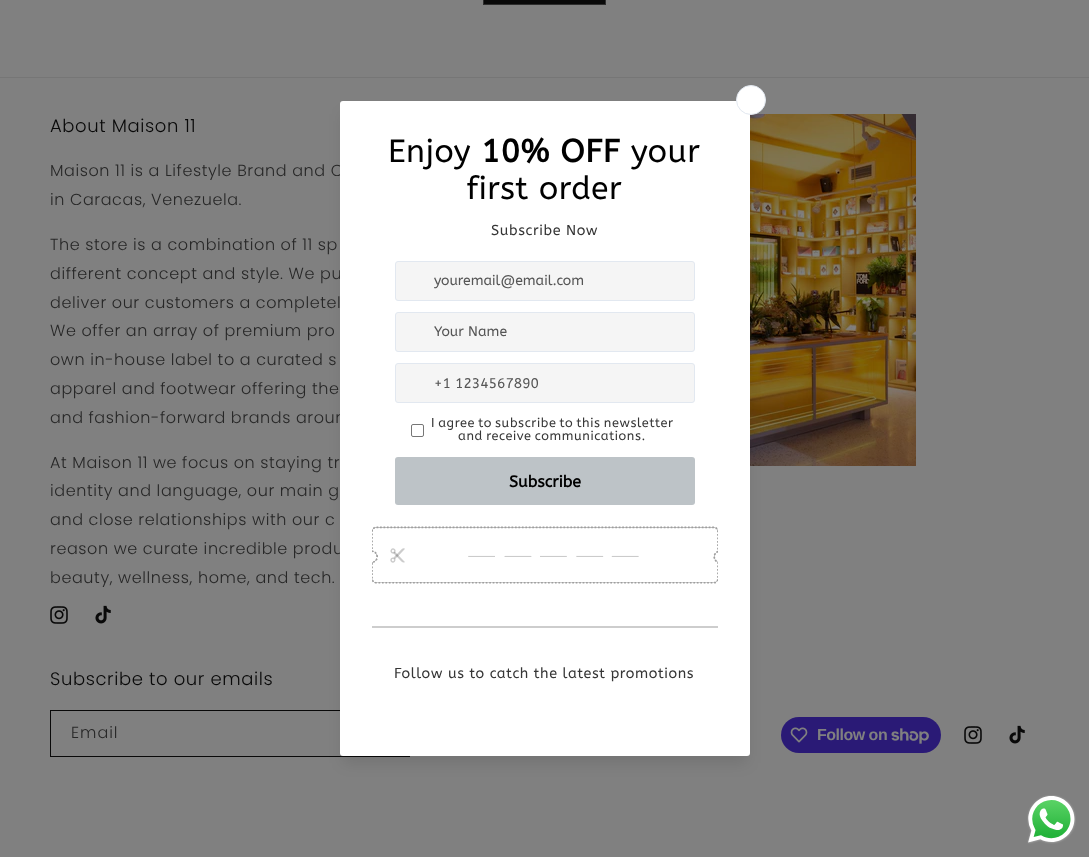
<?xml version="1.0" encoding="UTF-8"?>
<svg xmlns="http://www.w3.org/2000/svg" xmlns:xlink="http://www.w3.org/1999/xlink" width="1089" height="857">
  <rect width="100%" height="100%" fill="#808080" />
  <rect x="483.5" y="-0.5" width="122" height="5" fill="#090909" stroke="#2d2d2d" />
  <rect y="77" width="1089" height="1" fill="#767676" />
  <image x="50" y="606" width="18" height="18" xlink:href="image1.png" />
  <image x="95" y="605" width="16" height="19" xlink:href="image2.png" />
  <image x="750" y="114" width="166" height="352" xlink:href="image3.png" />
  <rect x="50.5" y="710.5" width="359" height="46" fill="none" stroke="#090909" />
  <rect x="781" y="717" width="160" height="36" rx="18" fill="#2a1a76" />
  <image x="790" y="727" width="18" height="16" xlink:href="image4.png" />
  <image x="891" y="728" width="38" height="16" xlink:href="image5.png" />
  <image x="964" y="726" width="18" height="18" xlink:href="image1.png" />
  <image x="1009" y="725" width="16" height="19" xlink:href="image2.png" />
  <rect x="343" y="114" width="404" height="649" fill="#000000" fill-opacity="0.1" filter="blur(7.5px)" />
  <image x="1027" y="795" width="49" height="49" xlink:href="image7.png" />
  <text x="50" y="132" style="font-family: Poppins; font-size: 18px; font-weight: 300; letter-spacing: 0.6px; fill: #090909">About Maison 11</text>
  <text x="50" y="176" style="font-family: Poppins; font-size: 16px; font-weight: 300; letter-spacing: 0.6px; fill: #272727">Maison 11 is a Lifestyle Brand and C</text>
  <text x="50" y="205" style="font-family: Poppins; font-size: 16px; font-weight: 300; letter-spacing: 0.6px; fill: #272727">in Caracas, Venezuela.</text>
  <text x="50" y="250" style="font-family: Poppins; font-size: 16px; font-weight: 300; letter-spacing: 0.6px; fill: #272727">The store is a combination of 11 sp</text>
  <text x="50" y="279" style="font-family: Poppins; font-size: 16px; font-weight: 300; letter-spacing: 0.6px; fill: #272727">different concept and style. We pu</text>
  <text x="50" y="308" style="font-family: Poppins; font-size: 16px; font-weight: 300; letter-spacing: 0.6px; fill: #272727">deliver our customers a completel</text>
  <text x="50" y="336" style="font-family: Poppins; font-size: 16px; font-weight: 300; letter-spacing: 0.6px; fill: #272727">We offer an array of premium pro</text>
  <text x="50" y="365" style="font-family: Poppins; font-size: 16px; font-weight: 300; letter-spacing: 0.6px; fill: #272727">own in-house label to a curated s</text>
  <text x="50" y="394" style="font-family: Poppins; font-size: 16px; font-weight: 300; letter-spacing: 0.6px; fill: #272727">apparel and footwear offering the</text>
  <text x="50" y="423" style="font-family: Poppins; font-size: 16px; font-weight: 300; letter-spacing: 0.6px; fill: #272727">and fashion-forward brands aroun</text>
  <text x="50" y="468" style="font-family: Poppins; font-size: 16px; font-weight: 300; letter-spacing: 0.6px; fill: #272727">At Maison 11 we focus on staying tr</text>
  <text x="50" y="496" style="font-family: Poppins; font-size: 16px; font-weight: 300; letter-spacing: 0.6px; fill: #272727">identity and language, our main g</text>
  <text x="50" y="525" style="font-family: Poppins; font-size: 16px; font-weight: 300; letter-spacing: 0.6px; fill: #272727">and close relationships with our c</text>
  <text x="50" y="554" style="font-family: Poppins; font-size: 16px; font-weight: 300; letter-spacing: 0.6px; fill: #272727">reason we curate incredible produ</text>
  <text x="50" y="583" style="font-family: Poppins; font-size: 16px; font-weight: 300; letter-spacing: 0.6px; fill: #272727">beauty, wellness, home, and tech.</text>
  <text x="50" y="685" style="font-family: Poppins; font-size: 18px; font-weight: 300; letter-spacing: 0.6px; fill: #090909">Subscribe to our emails</text>
  <text x="71" y="738" style="font-family: Poppins; font-size: 16px; font-weight: 300; letter-spacing: 1px; fill: #272727">Email</text>
  <text x="817" y="740" style="font-family: Liberation Sans; font-size: 16px; font-weight: bold; letter-spacing: -0.5px; fill: #808080">Follow on</text>
  <rect x="340" y="101" width="410" height="655" rx="3" fill="#ffffff" />
  <circle cx="751" cy="100" r="14.5" fill="#ffffff" stroke="#e2e8f0" />
  <text x="388" y="162" style="font-family: ABeeZee; font-size: 32px; letter-spacing: 0.6px; fill: #000000">Enjoy</text>
  <text x="481" y="162" style="font-family: ABeeZee; font-size: 32px; font-weight: bold; letter-spacing: 0.6px; fill: #000000">10% OFF</text>
  <text x="631" y="162" style="font-family: ABeeZee; font-size: 32px; letter-spacing: 0.6px; fill: #000000">your</text>
  <text x="467" y="199" style="font-family: ABeeZee; font-size: 32px; letter-spacing: 0.6px; fill: #000000">first order</text>
  <text x="491" y="235" style="font-family: ABeeZee; font-size: 14.4px; letter-spacing: 0.6px; fill: #363636">Subscribe Now</text>
  <rect x="395.5" y="261.5" width="299" height="39" rx="2.5" fill="#f5f5f5" stroke="#e2e8f0" />
  <text x="434" y="285" style="font-family: ABeeZee; font-size: 14px; fill: #565656">youremail@email.com</text>
  <rect x="395.5" y="312.5" width="299" height="39" rx="2.5" fill="#f5f5f5" stroke="#e2e8f0" />
  <text x="434" y="336" style="font-family: ABeeZee; font-size: 14px; fill: #565656">Your Name</text>
  <rect x="395.5" y="363.5" width="299" height="39" rx="2.5" fill="#f5f5f5" stroke="#e2e8f0" />
  <text x="434" y="388" style="font-family: ABeeZee; font-size: 14px; fill: #565656">+1 1234567890</text>
  <rect x="411.5" y="424.5" width="12" height="12" rx="1.5" fill="none" stroke="#767676" />
  <text x="431" y="427" word-spacing="-1.25" style="font-family: ABeeZee; font-size: 12.75px; letter-spacing: 0.6px; fill: #363636">I agree to subscribe to this newsletter</text>
  <text x="458" y="440" word-spacing="-1.25" style="font-family: ABeeZee; font-size: 12.75px; letter-spacing: 0.6px; fill: #363636">and receive communications.</text>
  <rect x="395" y="457" width="300" height="48" rx="3" fill="#bdc3c7" />
  <text x="509" y="487" style="font-family: ABeeZee; font-size: 16px; font-weight: bold; fill: #000000">Subscribe</text>
  <image x="372" y="526" width="346" height="58" xlink:href="image6.png" />
  <rect x="372" y="626" width="346" height="2" fill="#cdcdcd" />
  <text x="394" y="678" style="font-family: ABeeZee; font-size: 14.4px; letter-spacing: 0.6px; fill: #363636">Follow us to catch the latest promotions</text>
</svg>
